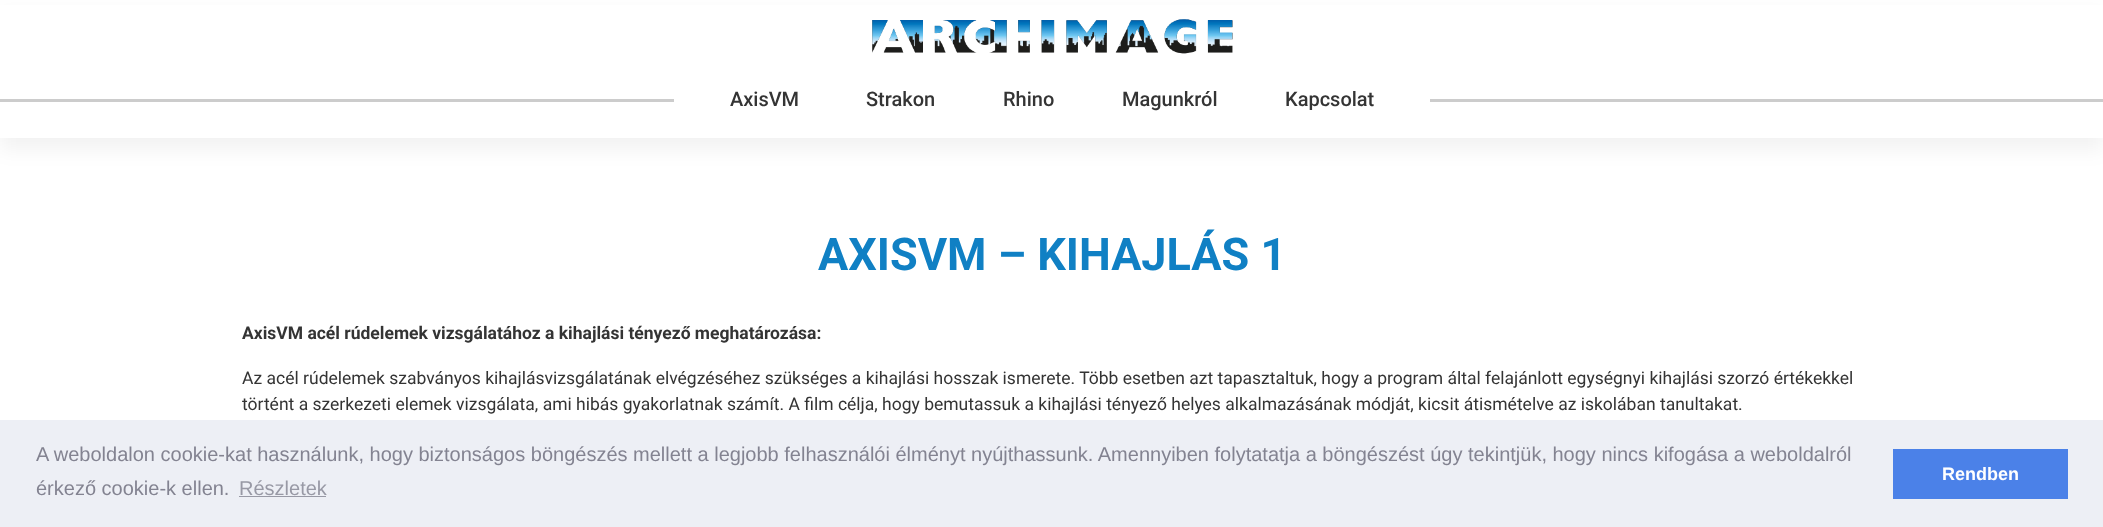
<?xml version="1.0" encoding="UTF-8"?>
<svg xmlns="http://www.w3.org/2000/svg" xmlns:xlink="http://www.w3.org/1999/xlink" width="2103" height="527">
  <rect width="100%" height="100%" fill="#ffffff" />
  <rect y="13" width="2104" height="137" fill="#000000" fill-opacity="0.05" filter="blur(9.5px)" />
  <rect y="5" width="2103" height="133" fill="#ffffff" />
  <image x="872" y="19" width="361" height="35" xlink:href="image1.png" />
  <rect y="99" width="2103" height="3" fill="#cccccc" />
  <rect x="674" y="99" width="756" height="3" fill="#ffffff" />
  <rect y="420" width="2103" height="107" fill="#edeff5" />
  <rect x="239" y="496" width="87" height="1" fill="#9899a5" />
  <rect x="1893" y="449" width="175" height="50" fill="#4b81e8" />
  <text x="730" y="106" style="font-family: Roboto; font-size: 20px; font-weight: 500; fill: #343434">AxisVM</text>
  <text x="866" y="106" style="font-family: Roboto; font-size: 20px; font-weight: 500; fill: #343434">Strakon</text>
  <text x="1003" y="106" style="font-family: Roboto; font-size: 20px; font-weight: 500; fill: #343434">Rhino</text>
  <text x="1122" y="106" style="font-family: Roboto; font-size: 20px; font-weight: 500; fill: #343434">Magunkról</text>
  <text x="1285" y="106" style="font-family: Roboto; font-size: 20px; font-weight: 500; fill: #343434">Kapcsolat</text>
  <text x="818" y="270" style="font-family: Roboto; font-size: 45px; font-weight: bold; fill: #1080c4">AXISVM – KIHAJLÁS 1</text>
  <text x="242" y="339" style="font-family: Roboto; font-size: 17.5px; font-weight: bold; fill: #343434">AxisVM acél rúdelemek vizsgálatához a kihajlási tényező meghatározása:</text>
  <text x="242" y="384" style="font-family: Roboto; font-size: 17.5px; fill: #343434">Az acél rúdelemek szabványos kihajlásvizsgálatának elvégzéséhez szükséges a kihajlási hosszak ismerete. Több esetben azt tapasztaltuk, hogy a program által felajánlott egységnyi kihajlási szorzó értékekkel</text>
  <text x="242" y="410" style="font-family: Roboto; font-size: 17.5px; fill: #343434">történt a szerkezeti elemek vizsgálata, ami hibás gyakorlatnak számít. A film célja, hogy bemutassuk a kihajlási tényező helyes alkalmazásának módját, kicsit átismételve az iskolában tanultakat.</text>
  <text x="36" y="461" style="font-family: Liberation Sans; font-size: 20px; fill: #838391">A weboldalon cookie-kat használunk, hogy biztonságos böngészés mellett a legjobb felhasználói élményt nyújthassunk. Amennyiben folytatatja a böngészést úgy tekintjük, hogy nincs kifogása a weboldalról</text>
  <text x="36" y="495" style="font-family: Liberation Sans; font-size: 20px; fill: #838391">érkező cookie-k ellen.</text>
  <text x="239" y="495" style="font-family: Liberation Sans; font-size: 20px; fill: #9899a5">Részletek</text>
  <text x="1942" y="480" style="font-family: Liberation Sans; font-size: 18px; font-weight: bold; fill: #ffffff">Rendben</text>
</svg>
